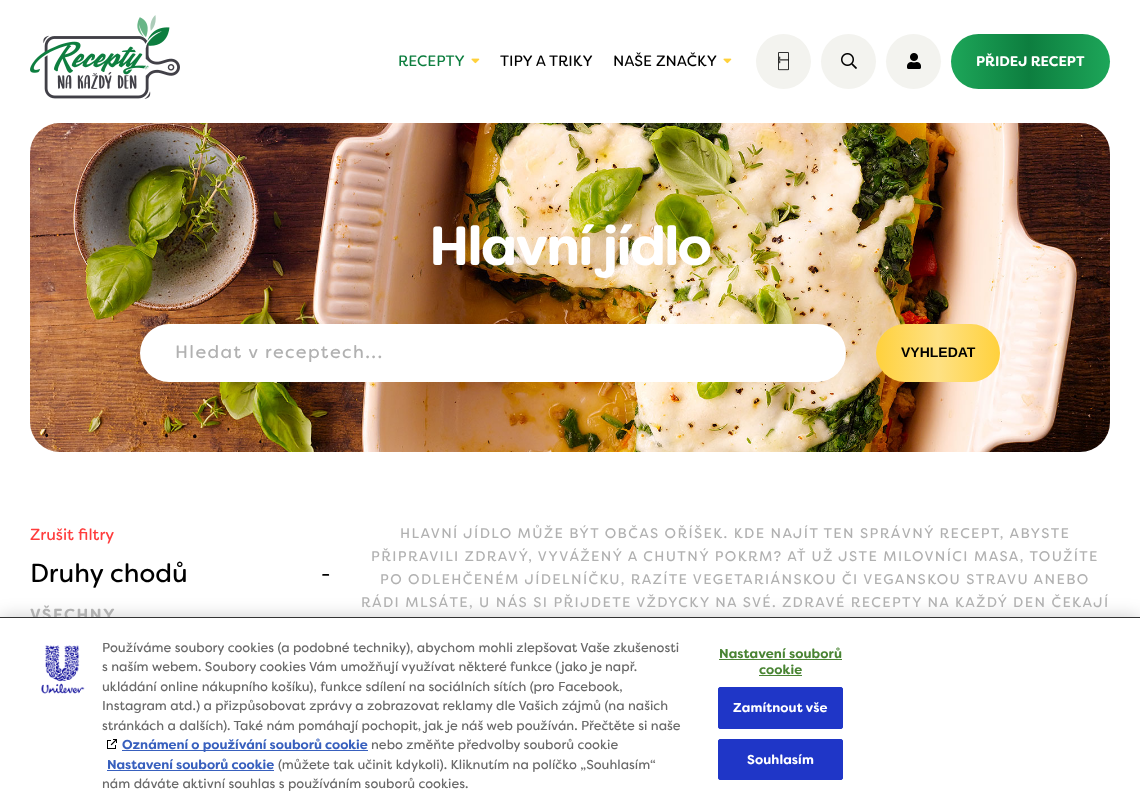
<?xml version="1.0" encoding="UTF-8"?>
<svg xmlns="http://www.w3.org/2000/svg" xmlns:xlink="http://www.w3.org/1999/xlink" width="1140" height="804">
  <defs>
    <linearGradient id="g1" gradientUnits="userSpaceOnUse" x1="951" y1="62" x2="1110" y2="61"><stop offset="0" stop-color="#1da659" /><stop offset="0.49" stop-color="#0d7e3f" /><stop offset="1" stop-color="#1da659" /></linearGradient>
    <linearGradient id="g2" gradientUnits="userSpaceOnUse" x1="876" y1="353" x2="1000" y2="353"><stop offset="0" stop-color="#ffd13c" /><stop offset="0.5" stop-color="#fee184" /><stop offset="1" stop-color="#ffd13c" /></linearGradient>
  </defs>
  <rect width="100%" height="100%" fill="#ffffff" />
  <image x="30" y="15" width="150" height="84" xlink:href="image1.png" />
  <image x="471" y="58" width="9" height="6" xlink:href="image2.png" />
  <image x="723" y="58" width="9" height="6" xlink:href="image2.png" />
  <circle cx="783.5" cy="61.5" r="27.5" fill="#f3f3ef" />
  <image x="778" y="52" width="11" height="19" xlink:href="image3.png" />
  <image x="779" y="56" width="1" height="3" xlink:href="image4.png" />
  <image x="779" y="56" width="2" height="3" xlink:href="image5.png" />
  <image x="778" y="59" width="11" height="2" xlink:href="image6.png" />
  <image x="778" y="59" width="11" height="2" xlink:href="image7.png" />
  <image x="779" y="61" width="1" height="2" xlink:href="image9.png" />
  <image x="779" y="60" width="2" height="4" xlink:href="image8.png" />
  <circle cx="848.5" cy="61.5" r="27.5" fill="#f3f3ef" />
  <image x="841" y="53" width="16" height="16" xlink:href="image10.png" />
  <circle cx="913.5" cy="61.5" r="27.5" fill="#f3f3ef" />
  <image x="907" y="53" width="14" height="16" xlink:href="image11.png" />
  <rect x="951" y="34" width="159" height="55" rx="27.5" fill="url(#g1)" />
  <image x="30" y="123" width="1080" height="329" xlink:href="image12.png" />
  <rect x="140" y="324" width="706" height="58" rx="29" fill="#ffffff" />
  <rect x="876" y="324" width="124" height="58" rx="29" fill="url(#g2)" />
  <rect y="617" width="1140" height="187" fill="#000000" fill-opacity="0.2" filter="blur(9px)" />
  <text x="398" y="66" style="font-family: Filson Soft; font-size: 15px; fill: #0d7e3f">RECEPTY</text>
  <text x="500" y="66" style="font-family: Filson Soft; font-size: 15px; fill: #000000">TIPY A TRIKY</text>
  <text x="613" y="66" style="font-family: Filson Soft; font-size: 15px; fill: #000000">NAŠE ZNAČKY</text>
  <text x="976" y="66" style="font-family: Filson Soft; font-size: 14px; font-weight: bold; fill: #ffffff">PŘIDEJ RECEPT</text>
  <text x="429" y="265" style="font-family: Filson Soft; font-size: 55px; font-weight: bold; letter-spacing: -2px; fill: #ffffff">Hlavní jídlo</text>
  <text x="175" y="358" style="font-family: Filson Soft; font-size: 18px; letter-spacing: 1.4px; fill: #b1b1b1">Hledat v receptech...</text>
  <text x="901" y="357" style="font-family: Liberation Sans; font-size: 14px; font-weight: bold; fill: #000000">VYHLEDAT</text>
  <text x="30" y="540" style="font-family: Filson Soft; font-size: 16px; fill: #ff3c3c">Zrušit filtry</text>
  <text x="30" y="582" style="font-family: Filson Soft; font-size: 26px; fill: #000000">Druhy chodů</text>
  <text x="321" y="581" style="font-family: Filson Soft; font-size: 20px; fill: #000000">-</text>
  <text x="30" y="620" style="font-family: Filson Soft; font-size: 16px; font-weight: bold; letter-spacing: 1.5px; fill: #b1b1b1">VŠECHNY</text>
  <text x="400" y="538" style="font-family: Filson Soft; font-size: 14px; letter-spacing: 1.4px; fill: #b1b1b1">HLAVNÍ JÍDLO MŮŽE BÝT OBČAS OŘÍŠEK. KDE NAJÍT TEN SPRÁVNÝ RECEPT, ABYSTE</text>
  <text x="371" y="561" style="font-family: Filson Soft; font-size: 14px; letter-spacing: 1.4px; fill: #b1b1b1">PŘIPRAVILI ZDRAVÝ, VYVÁŽENÝ A CHUTNÝ POKRM? AŤ UŽ JSTE MILOVNÍCI MASA, TOUŽÍTE</text>
  <text x="380" y="584" style="font-family: Filson Soft; font-size: 14px; letter-spacing: 1.4px; fill: #b1b1b1">PO ODLEHČENÉM JÍDELNÍČKU, RAZÍTE VEGETARIÁNSKOU ČI VEGANSKOU STRAVU ANEBO</text>
  <text x="361" y="607" style="font-family: Filson Soft; font-size: 14px; letter-spacing: 1.4px; fill: #b1b1b1">RÁDI MLSÁTE, U NÁS SI PŘIJDETE VŽDYCKY NA SVÉ. ZDRAVÉ RECEPTY NA KAŽDÝ DEN ČEKAJÍ</text>
  <rect y="618" width="1140" height="186" fill="#ffffff" />
  <rect y="617" width="1140" height="1" fill="#333333" />
  <image x="41" y="645" width="44" height="49" xlink:href="image13.png" />
  <text x="102" y="652" style="font-family: Filson Soft; font-size: 13px; fill: #696969">Používáme soubory cookies (a podobné techniky), abychom mohli zlepšovat Vaše zkušenosti</text>
  <text x="102" y="671" style="font-family: Filson Soft; font-size: 13px; fill: #696969">s naším webem. Soubory cookies Vám umožňují využívat některé funkce (jako je</text>
  <text x="605" y="671" style="font-family: Filson Soft; font-size: 13px; fill: #696969">např.</text>
  <text x="102" y="691" style="font-family: Filson Soft; font-size: 13px; fill: #696969">ukládání online nákupního košíku), funkce sdílení na sociálních sítích (pro Facebook,</text>
  <text x="102" y="710" style="font-family: Filson Soft; font-size: 13px; fill: #696969">Instagram atd.) a přizpůsobovat zprávy a zobrazovat reklamy dle Vašich zájmů (na našich</text>
  <text x="102" y="730" style="font-family: Filson Soft; font-size: 13px; fill: #696969">stránkách a dalších). Také nám pomáhají pochopit, jak je náš web používán. Přečtěte si naše</text>
  <image x="107" y="739" width="10" height="10" xlink:href="image14.png" />
  <rect x="122" y="750" width="246" height="1" fill="#3860be" />
  <text x="122" y="749" style="font-family: Filson Soft; font-size: 13px; font-weight: bold; fill: #3860be">Oznámení o používání souborů cookie</text>
  <text x="371" y="749" style="font-family: Filson Soft; font-size: 13px; fill: #696969">nebo změňte předvolby souborů cookie</text>
  <text x="107" y="769" style="font-family: Filson Soft; font-size: 13px; font-weight: bold; fill: #3860be">Nastavení souborů cookie</text>
  <rect x="107" y="770" width="167" height="1" fill="#3860be" />
  <text x="278" y="769" style="font-family: Filson Soft; font-size: 13px; fill: #696969">(můžete tak učinit kdykoli). Kliknutím na políčko „Souhlasím“</text>
  <text x="102" y="788" style="font-family: Filson Soft; font-size: 13px; fill: #696969">nám dáváte aktivní souhlas s používáním souborů cookies.</text>
  <text x="719" y="658" style="font-family: Filson Soft; font-size: 13px; font-weight: bold; letter-spacing: 0.1px; fill: #498433">Nastavení souborů</text>
  <rect x="719" y="659" width="123" height="1" fill="#498433" />
  <text x="759" y="674" style="font-family: Filson Soft; font-size: 13px; font-weight: bold; letter-spacing: 0.1px; fill: #498433">cookie</text>
  <rect x="759" y="675" width="43" height="1" fill="#498433" />
  <rect x="718.5" y="687.5" width="124" height="41" rx="1.5" fill="#1f36c7" stroke="#1f36c7" />
  <text x="733" y="712" style="font-family: Filson Soft; font-size: 13px; font-weight: bold; letter-spacing: 0.1px; fill: #ffffff">Zamítnout vše</text>
  <rect x="718.5" y="739.5" width="124" height="40" rx="1.5" fill="#1f36c7" stroke="#1f36c7" />
  <text x="747" y="764" style="font-family: Filson Soft; font-size: 13px; font-weight: bold; letter-spacing: 0.1px; fill: #ffffff">Souhlasím</text>
</svg>
